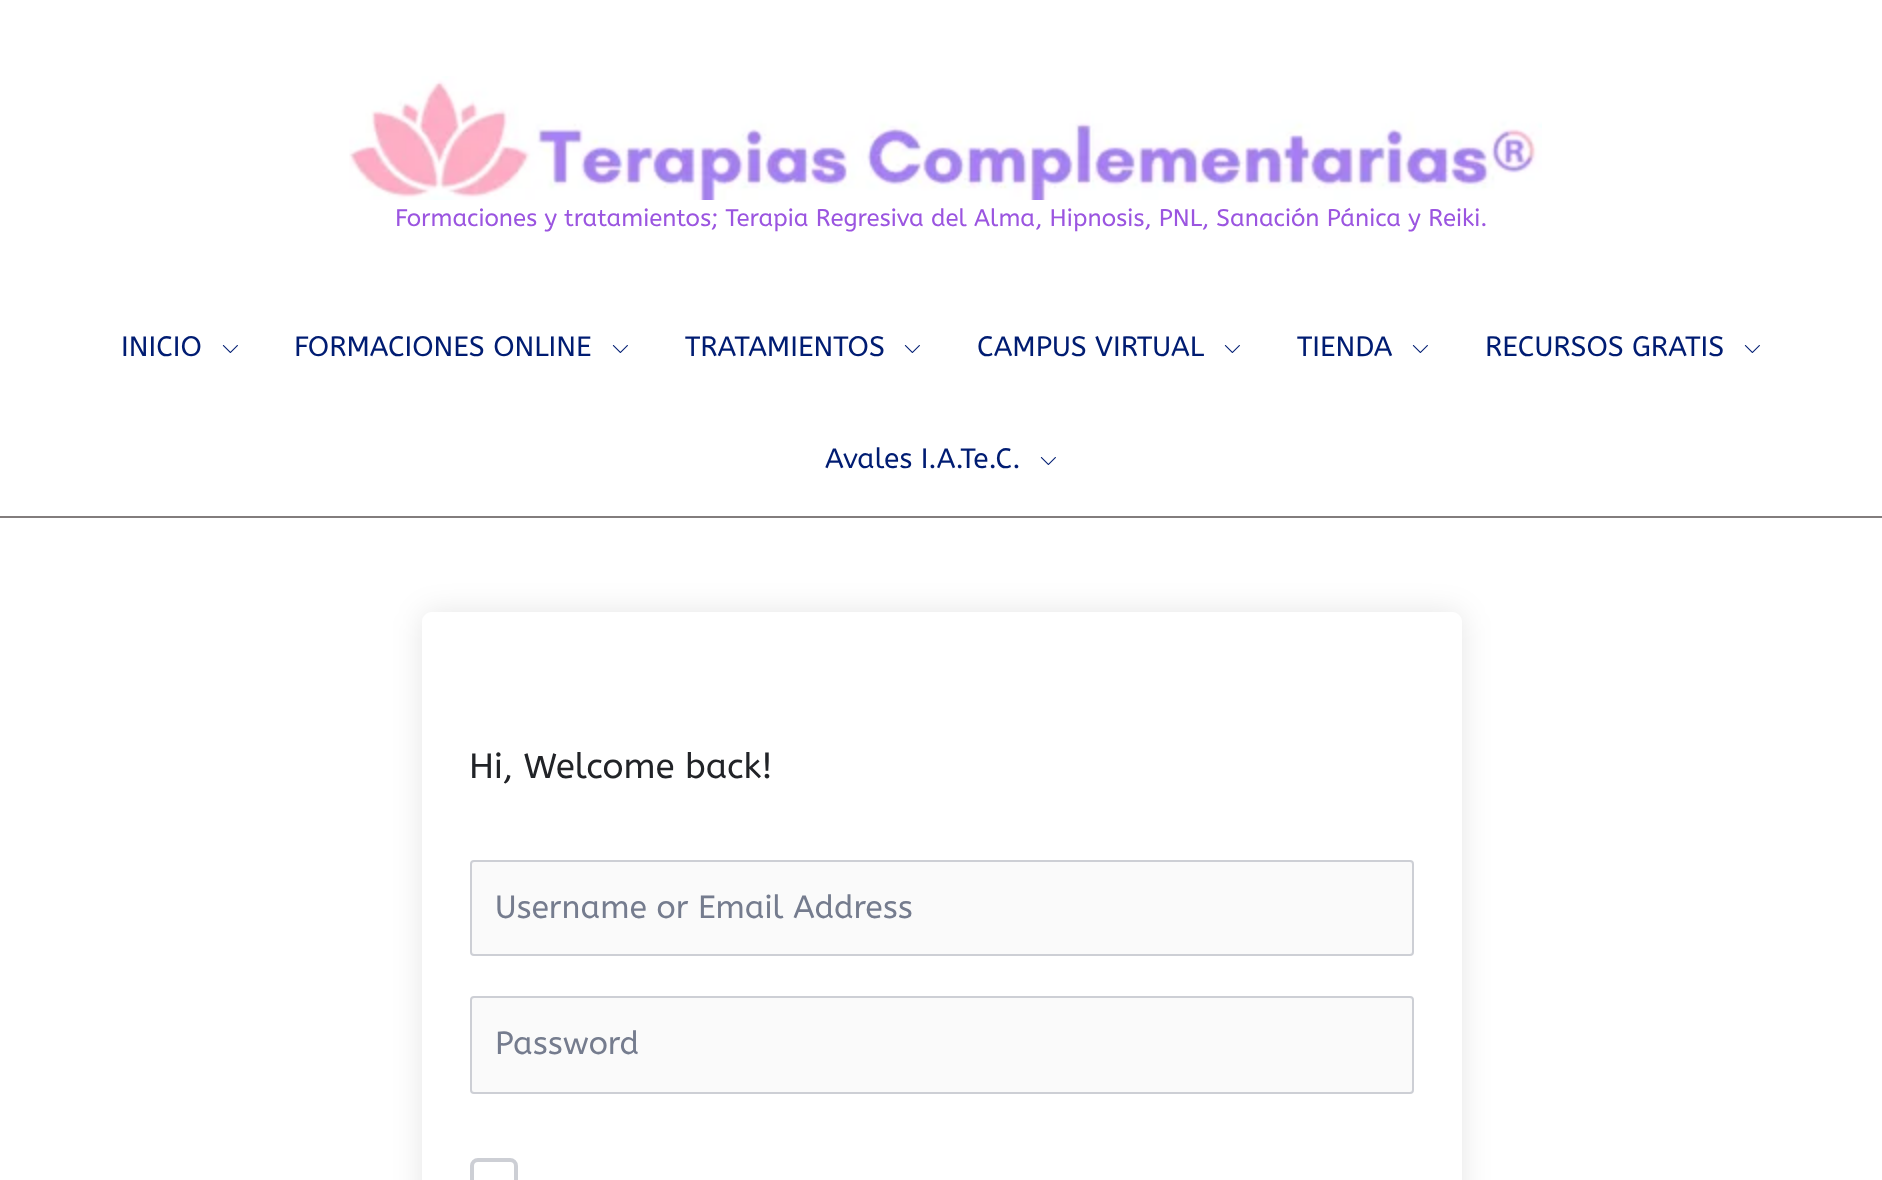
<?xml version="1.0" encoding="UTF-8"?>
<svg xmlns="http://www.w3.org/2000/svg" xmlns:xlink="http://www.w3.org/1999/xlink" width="1882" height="1180">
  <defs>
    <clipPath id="clip1"><path d="M 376 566 h 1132 v 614 h -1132 z m 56 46 h 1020 c 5.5 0 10 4.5 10 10 v 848 c 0 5.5 -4.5 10 -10 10 h -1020 c -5.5 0 -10 -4.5 -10 -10 v -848 c 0 -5.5 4.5 -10 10 -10 z" clip-rule="evenodd" /></clipPath>
  </defs>
  <rect width="100%" height="100%" fill="#ffffff" />
  <rect y="516" width="1882" height="2" fill="#827d7d" />
  <image x="349" y="76" width="1193" height="124" xlink:href="image1.png" />
  <image x="222" y="345" width="16" height="8" xlink:href="image2.png" />
  <image x="612" y="345" width="16" height="8" xlink:href="image2.png" />
  <image x="904" y="345" width="16" height="8" xlink:href="image2.png" />
  <image x="1224" y="345" width="16" height="8" xlink:href="image2.png" />
  <image x="1412" y="345" width="16" height="8" xlink:href="image2.png" />
  <image x="1744" y="345" width="16" height="8" xlink:href="image2.png" />
  <image x="1040" y="457" width="16" height="8" xlink:href="image2.png" />
  <g clip-path="url(#clip1)">
    <rect x="422" y="612" width="1040" height="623" rx="10" fill="#000000" fill-opacity="0.1" filter="blur(15px)" />
  </g>
  <rect x="471" y="861" width="942" height="94" rx="3" fill="#fafafa" stroke="#cdcfd5" stroke-width="2" />
  <rect x="471" y="997" width="942" height="96" rx="3" fill="#fafafa" stroke="#cdcfd5" stroke-width="2" />
  <rect x="472" y="1160" width="44" height="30" rx="6" fill="none" stroke="#cdcfd5" stroke-width="4" />
  <text x="395" y="226" style="font-family: ABeeZee; font-size: 24px; fill: #9b55e0">Formaciones y tratamientos; Terapia Regresiva del Alma, Hipnosis, PNL, Sanación Pánica y Reiki.</text>
  <text x="121" y="356" style="font-family: ABeeZee; font-size: 28px; fill: #001c72">INICIO</text>
  <text x="294" y="356" style="font-family: ABeeZee; font-size: 28px; fill: #001c72">FORMACIONES ONLINE</text>
  <text x="685" y="356" style="font-family: ABeeZee; font-size: 28px; fill: #001c72">TRATAMIENTOS</text>
  <text x="977" y="356" style="font-family: ABeeZee; font-size: 28px; fill: #001c72">CAMPUS VIRTUAL</text>
  <text x="1297" y="356" style="font-family: ABeeZee; font-size: 28px; fill: #001c72">TIENDA</text>
  <text x="1485" y="356" style="font-family: ABeeZee; font-size: 28px; fill: #001c72">RECURSOS GRATIS</text>
  <text x="825" y="468" style="font-family: ABeeZee; font-size: 28px; fill: #001c72">Avales I.A.Te.C.</text>
  <text x="469" y="778" style="font-family: ABeeZee; font-size: 35px; fill: #212327">Hi, Welcome back!</text>
  <text x="495" y="918" style="font-family: ABeeZee; font-size: 32px; fill: #757c8e">Username or Email Address</text>
  <text x="495" y="1054" style="font-family: ABeeZee; font-size: 32px; fill: #757c8e">Password</text>
</svg>
